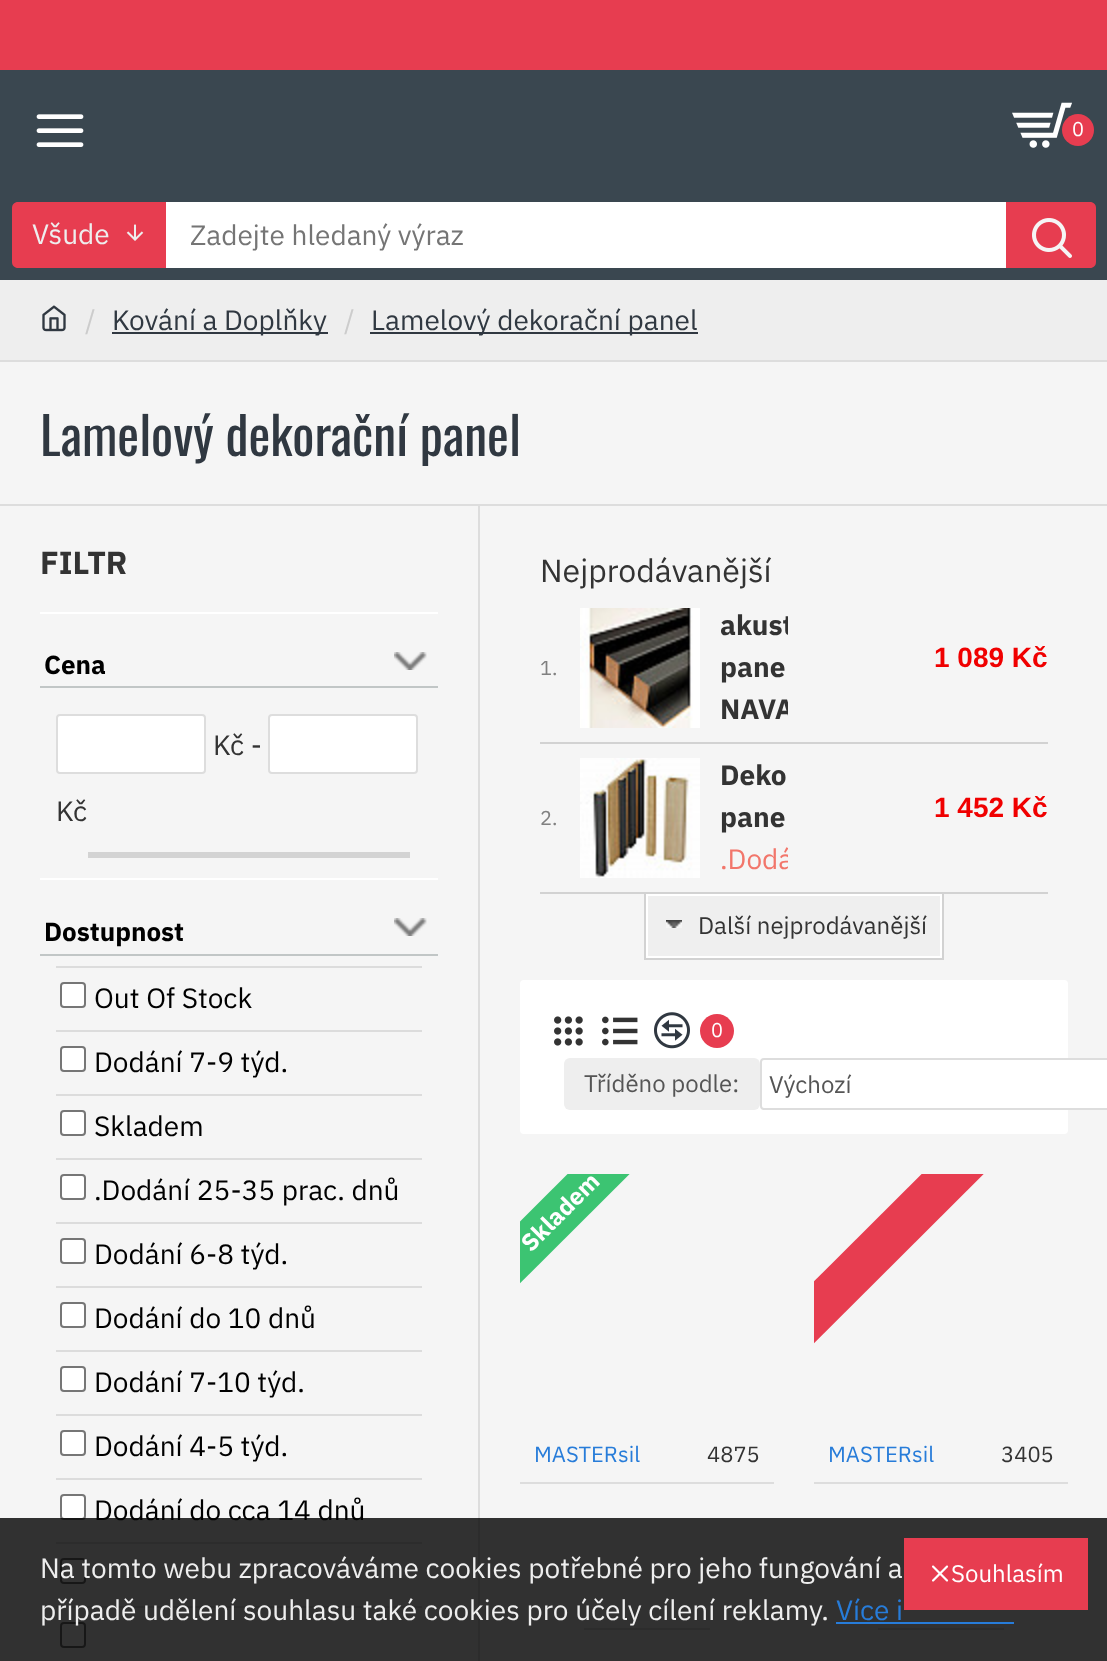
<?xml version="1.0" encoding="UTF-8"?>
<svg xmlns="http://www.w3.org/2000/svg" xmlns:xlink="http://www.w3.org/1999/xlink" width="1107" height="1661">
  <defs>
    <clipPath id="clip1"><rect x="520" y="1174" width="254" height="254" /></clipPath>
    <clipPath id="clip2"><rect x="814" y="1174" width="254" height="254" /></clipPath>
    <clipPath id="clip3"><rect x="700" y="594" width="88" height="148" /></clipPath>
    <clipPath id="clip4"><rect x="700" y="744" width="88" height="148" /></clipPath>
  </defs>
  <rect width="100%" height="100%" fill="#f5f5f5" />
  <rect width="1107" height="70" fill="#e73d50" />
  <rect y="70" width="1107" height="210" fill="#3a4750" />
  <image x="36" y="114" width="48" height="33" xlink:href="image1.png" />
  <image x="1012" y="102" width="60" height="46" xlink:href="image2.png" />
  <circle cx="1078" cy="130" r="16" fill="#e73d50" />
  <path d="M 18 202 h 148 v 66 h -148 c -3.5 0 -6 -2.5 -6 -6 v -54 c 0 -3.5 2.5 -6 6 -6 z" fill="#e73d50" />
  <image x="126" y="224" width="18" height="17" xlink:href="image3.png" />
  <rect x="166" y="202" width="840" height="66" fill="#ffffff" />
  <path d="M 1006 202 h 84 c 3.5 0 6 2.5 6 6 v 54 c 0 3.5 -2.5 6 -6 6 h -84 z" fill="#e73d50" />
  <image x="1032" y="218" width="40" height="40" xlink:href="image4.png" />
  <rect y="280" width="1107" height="80" fill="#eeeeee" />
  <rect y="360" width="1107" height="2" fill="#dddddd" />
  <image x="42" y="305" width="24" height="27" xlink:href="image5.png" />
  <rect x="112" y="332" width="216" height="2" fill="#303841" />
  <rect x="370" y="332" width="328" height="2" fill="#303841" />
  <rect y="504" width="1107" height="2" fill="#dddddd" />
  <rect x="478" y="506" width="2" height="1155" fill="#dddddd" />
  <rect x="40" y="612" width="398" height="2" fill="#ffffff" />
  <rect x="40" y="686" width="398" height="2" fill="#c1c6c6" />
  <image x="394" y="652" width="33" height="18" xlink:href="image6.png" />
  <rect x="57" y="715" width="148" height="58" rx="3" fill="#ffffff" stroke="#dddddd" stroke-width="2" />
  <rect x="269" y="715" width="148" height="58" rx="3" fill="#ffffff" stroke="#dddddd" stroke-width="2" />
  <rect x="88" y="852" width="322" height="6" fill="#d3d3d3" />
  <rect x="40" y="878" width="398" height="2" fill="#ffffff" />
  <rect x="40" y="954" width="398" height="2" fill="#c1c6c6" />
  <image x="394" y="918" width="33" height="18" xlink:href="image6.png" />
  <rect x="56" y="966" width="38" height="2" fill="#dcdcdc" />
  <rect x="61" y="983" width="24" height="24" rx="3" fill="#ffffff" stroke="#767676" stroke-width="2" />
  <rect x="94" y="966" width="328" height="2" fill="#dcdcdc" />
  <rect x="56" y="1030" width="38" height="2" fill="#dcdcdc" />
  <rect x="61" y="1047" width="24" height="24" rx="3" fill="#ffffff" stroke="#767676" stroke-width="2" />
  <rect x="94" y="1030" width="328" height="2" fill="#dcdcdc" />
  <rect x="56" y="1094" width="38" height="2" fill="#dcdcdc" />
  <rect x="61" y="1111" width="24" height="24" rx="3" fill="#ffffff" stroke="#767676" stroke-width="2" />
  <rect x="94" y="1094" width="328" height="2" fill="#dcdcdc" />
  <rect x="56" y="1158" width="38" height="2" fill="#dcdcdc" />
  <rect x="61" y="1175" width="24" height="24" rx="3" fill="#ffffff" stroke="#767676" stroke-width="2" />
  <rect x="94" y="1158" width="328" height="2" fill="#dcdcdc" />
  <rect x="56" y="1222" width="38" height="2" fill="#dcdcdc" />
  <rect x="61" y="1239" width="24" height="24" rx="3" fill="#ffffff" stroke="#767676" stroke-width="2" />
  <rect x="94" y="1222" width="328" height="2" fill="#dcdcdc" />
  <rect x="56" y="1286" width="38" height="2" fill="#dcdcdc" />
  <rect x="61" y="1303" width="24" height="24" rx="3" fill="#ffffff" stroke="#767676" stroke-width="2" />
  <rect x="94" y="1286" width="328" height="2" fill="#dcdcdc" />
  <rect x="56" y="1350" width="38" height="2" fill="#dcdcdc" />
  <rect x="61" y="1367" width="24" height="24" rx="3" fill="#ffffff" stroke="#767676" stroke-width="2" />
  <rect x="94" y="1350" width="328" height="2" fill="#dcdcdc" />
  <rect x="56" y="1414" width="38" height="2" fill="#dcdcdc" />
  <rect x="61" y="1431" width="24" height="24" rx="3" fill="#ffffff" stroke="#767676" stroke-width="2" />
  <rect x="94" y="1414" width="328" height="2" fill="#dcdcdc" />
  <rect x="56" y="1478" width="38" height="2" fill="#dcdcdc" />
  <rect x="61" y="1495" width="24" height="24" rx="3" fill="#ffffff" stroke="#767676" stroke-width="2" />
  <rect x="94" y="1478" width="328" height="2" fill="#dcdcdc" />
  <rect x="56" y="1542" width="38" height="2" fill="#dcdcdc" />
  <rect x="61" y="1559" width="24" height="24" rx="3" fill="#ffffff" stroke="#767676" stroke-width="2" />
  <rect x="94" y="1542" width="328" height="2" fill="#dcdcdc" />
  <rect x="56" y="1606" width="38" height="2" fill="#dcdcdc" />
  <rect x="61" y="1623" width="24" height="24" rx="3" fill="#ffffff" stroke="#767676" stroke-width="2" />
  <rect x="94" y="1606" width="328" height="2" fill="#dcdcdc" />
  <rect x="540" y="892" width="508" height="2" fill="#d2d2d2" />
  <rect x="540" y="742" width="508" height="2" fill="#d2d2d2" />
  <image x="580" y="608" width="120" height="120" xlink:href="image7.png" />
  <image x="580" y="758" width="120" height="120" xlink:href="image8.png" />
  <rect x="648" y="896" width="292" height="60" fill="#efefef" />
  <rect x="942" y="894" width="2" height="66" fill="#d2d2d2" />
  <rect x="644" y="958" width="300" height="2" fill="#d2d2d2" />
  <rect x="644" y="894" width="2" height="66" fill="#d2d2d2" />
  <image x="666" y="920" width="16" height="8" xlink:href="image9.png" />
  <rect x="647" y="895" width="294" height="62" fill="none" stroke="#ffffff" stroke-width="2" />
  <rect x="520" y="980" width="548" height="154" rx="4" fill="#ffffff" />
  <image x="554" y="1016" width="29" height="30" xlink:href="image10.png" />
  <image x="602" y="1016" width="36" height="30" xlink:href="image11.png" />
  <image x="654" y="1012" width="36" height="37" xlink:href="image12.png" />
  <circle cx="717" cy="1031" r="17" fill="#e73d50" />
  <rect x="564" y="1058" width="196" height="52" rx="6" fill="#eeeeee" />
  <path d="M 764 1058 h 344 v 52 h -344 c -2 0 -4 -2 -4 -4 v -44 c 0 -2 2 -4 4 -4 z" fill="#ffffff" />
  <rect x="761" y="1059" width="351" height="50" rx="3" fill="none" stroke="#dddddd" stroke-width="2" />
  <g clip-path="url(#clip1)">
    <path d="M 332 1409 l 425 -424 l 31 31 l -425 424 z" fill="#3cc472" />
  </g>
  <rect x="520" y="1482" width="254" height="2" fill="#dddddd" />
  <rect x="584" y="1628" width="126" height="2" fill="#dddddd" />
  <g clip-path="url(#clip2)">
    <path d="M 656 1439 l 425 -424 l 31 31 l -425 424 z" fill="#e73d50" />
  </g>
  <rect x="814" y="1482" width="254" height="2" fill="#dddddd" />
  <rect x="878" y="1628" width="126" height="2" fill="#dddddd" />
  <text x="1072" y="136" style="font-family: IBM Plex Sans; font-size: 20px; fill: #ffffff">0</text>
  <text x="32" y="244" style="font-family: IBM Plex Sans; font-size: 28px; fill: #eeeeee">Všude</text>
  <text x="190" y="245" style="font-family: IBM Plex Sans; font-size: 28px; fill: #757575">Zadejte hledaný výraz</text>
  <text x="85" y="330" style="font-family: IBM Plex Sans; font-size: 28px; fill: #cccccc">/</text>
  <text x="112" y="330" style="font-family: IBM Plex Sans; font-size: 28px; fill: #303841">Kování a Doplňky</text>
  <text x="344" y="330" style="font-family: IBM Plex Sans; font-size: 28px; fill: #cccccc">/</text>
  <text x="371" y="330" style="font-family: IBM Plex Sans; font-size: 28px; fill: #303841">Lamelový dekorační panel</text>
  <text x="40" y="456" style="font-family: Oswald; font-size: 52px; fill: #303841">Lamelový dekorační panel</text>
  <text x="40" y="574" style="font-family: IBM Plex Sans; font-size: 32px; font-weight: bold; fill: #333333">FILTR</text>
  <text x="44" y="674" style="font-family: IBM Plex Sans; font-size: 26px; font-weight: bold; fill: #000000">Cena</text>
  <text x="213" y="755" style="font-family: IBM Plex Sans; font-size: 28px; fill: #333333">Kč -</text>
  <text x="56" y="821" style="font-family: IBM Plex Sans; font-size: 28px; fill: #333333">Kč</text>
  <text x="44" y="941" style="font-family: IBM Plex Sans; font-size: 26px; font-weight: bold; fill: #000000">Dostupnost</text>
  <text x="94" y="1008" style="font-family: IBM Plex Sans; font-size: 28px; fill: #000000">Out Of Stock</text>
  <text x="94" y="1072" style="font-family: IBM Plex Sans; font-size: 28px; fill: #000000">Dodání 7-9 týd.</text>
  <text x="94" y="1136" style="font-family: IBM Plex Sans; font-size: 28px; fill: #000000">Skladem</text>
  <text x="94" y="1200" style="font-family: IBM Plex Sans; font-size: 28px; fill: #000000">.Dodání 25-35 prac. dnů</text>
  <text x="94" y="1264" style="font-family: IBM Plex Sans; font-size: 28px; fill: #000000">Dodání 6-8 týd.</text>
  <text x="94" y="1328" style="font-family: IBM Plex Sans; font-size: 28px; fill: #000000">Dodání do 10 dnů</text>
  <text x="94" y="1392" style="font-family: IBM Plex Sans; font-size: 28px; fill: #000000">Dodání 7-10 týd.</text>
  <text x="94" y="1456" style="font-family: IBM Plex Sans; font-size: 28px; fill: #000000">Dodání 4-5 týd.</text>
  <text x="94" y="1520" style="font-family: IBM Plex Sans; font-size: 28px; fill: #000000">Dodání do cca 14 dnů</text>
  <text x="540" y="582" style="font-family: IBM Plex Sans; font-size: 32px; fill: #333333">Nejprodávanější</text>
  <text x="540" y="675" style="font-family: IBM Plex Sans; font-size: 20px; fill: #808080">1.</text>
  <g clip-path="url(#clip3)">
    <text x="720" y="635" style="font-family: IBM Plex Sans; font-size: 28px; font-weight: bold; fill: #333333">akust</text>
  </g>
  <text x="720" y="677" style="font-family: IBM Plex Sans; font-size: 28px; font-weight: bold; fill: #333333">pane</text>
  <g clip-path="url(#clip3)">
    <text x="720" y="719" style="font-family: IBM Plex Sans; font-size: 28px; font-weight: bold; fill: #333333">NAVA</text>
  </g>
  <text x="934" y="667" style="font-family: Liberation Sans; font-size: 28px; font-weight: bold; fill: #f00000">1 089 Kč</text>
  <text x="540" y="825" style="font-family: IBM Plex Sans; font-size: 20px; fill: #808080">2.</text>
  <text x="720" y="785" style="font-family: IBM Plex Sans; font-size: 28px; font-weight: bold; fill: #333333">Deko</text>
  <text x="720" y="827" style="font-family: IBM Plex Sans; font-size: 28px; font-weight: bold; fill: #333333">pane</text>
  <g clip-path="url(#clip4)">
    <text x="720" y="869" style="font-family: IBM Plex Sans; font-size: 28px; fill: #f2766b">.Dodá</text>
  </g>
  <text x="934" y="817" style="font-family: Liberation Sans; font-size: 28px; font-weight: bold; fill: #f00000">1 452 Kč</text>
  <text x="698" y="934" style="font-family: IBM Plex Sans; font-size: 24px; fill: #333333">Další nejprodávanější</text>
  <text x="711" y="1037" style="font-family: IBM Plex Sans; font-size: 20px; fill: #ffffff">0</text>
  <text x="584" y="1092" style="font-family: IBM Plex Sans; font-size: 24px; fill: #555555">Tříděno podle:</text>
  <text x="769" y="1093" style="font-family: IBM Plex Sans; font-size: 24px; fill: #555555">Výchozí</text>
  <text x="531" y="1253" transform="rotate(-45 531 1253)" style="font-family: IBM Plex Sans; font-size: 24px; font-weight: bold; fill: #ffffff">Skladem</text>
  <text x="534" y="1462" style="font-family: IBM Plex Sans; font-size: 22px; fill: #277cd9">MASTERsil</text>
  <text x="707" y="1462" style="font-family: IBM Plex Sans; font-size: 22px; fill: #333333">4875</text>
  <text x="828" y="1462" style="font-family: IBM Plex Sans; font-size: 22px; fill: #277cd9">MASTERsil</text>
  <text x="1001" y="1462" style="font-family: IBM Plex Sans; font-size: 22px; fill: #333333">3405</text>
  <rect y="1518" width="1107" height="143" fill="#000000" fill-opacity="0.8" />
  <text x="40" y="1578" style="font-family: IBM Plex Sans; font-size: 28px; fill: #eeeeee">Na tomto webu zpracováváme cookies potřebné pro jeho fungování a</text>
  <text x="40" y="1620" style="font-family: IBM Plex Sans; font-size: 28px; fill: #eeeeee">případě udělení souhlasu také cookies pro účely cílení reklamy.</text>
  <text x="836" y="1620" style="font-family: IBM Plex Sans; font-size: 28px; fill: #277cd9">Více i</text>
  <rect x="836" y="1622" width="178" height="2" fill="#277cd9" />
  <rect x="904" y="1538" width="184" height="72" fill="#e73d50" />
  <image x="932" y="1565" width="17" height="17" xlink:href="image13.png" />
  <text x="951" y="1582" style="font-family: IBM Plex Sans; font-size: 24px; fill: #ffffff">Souhlasím</text>
</svg>
